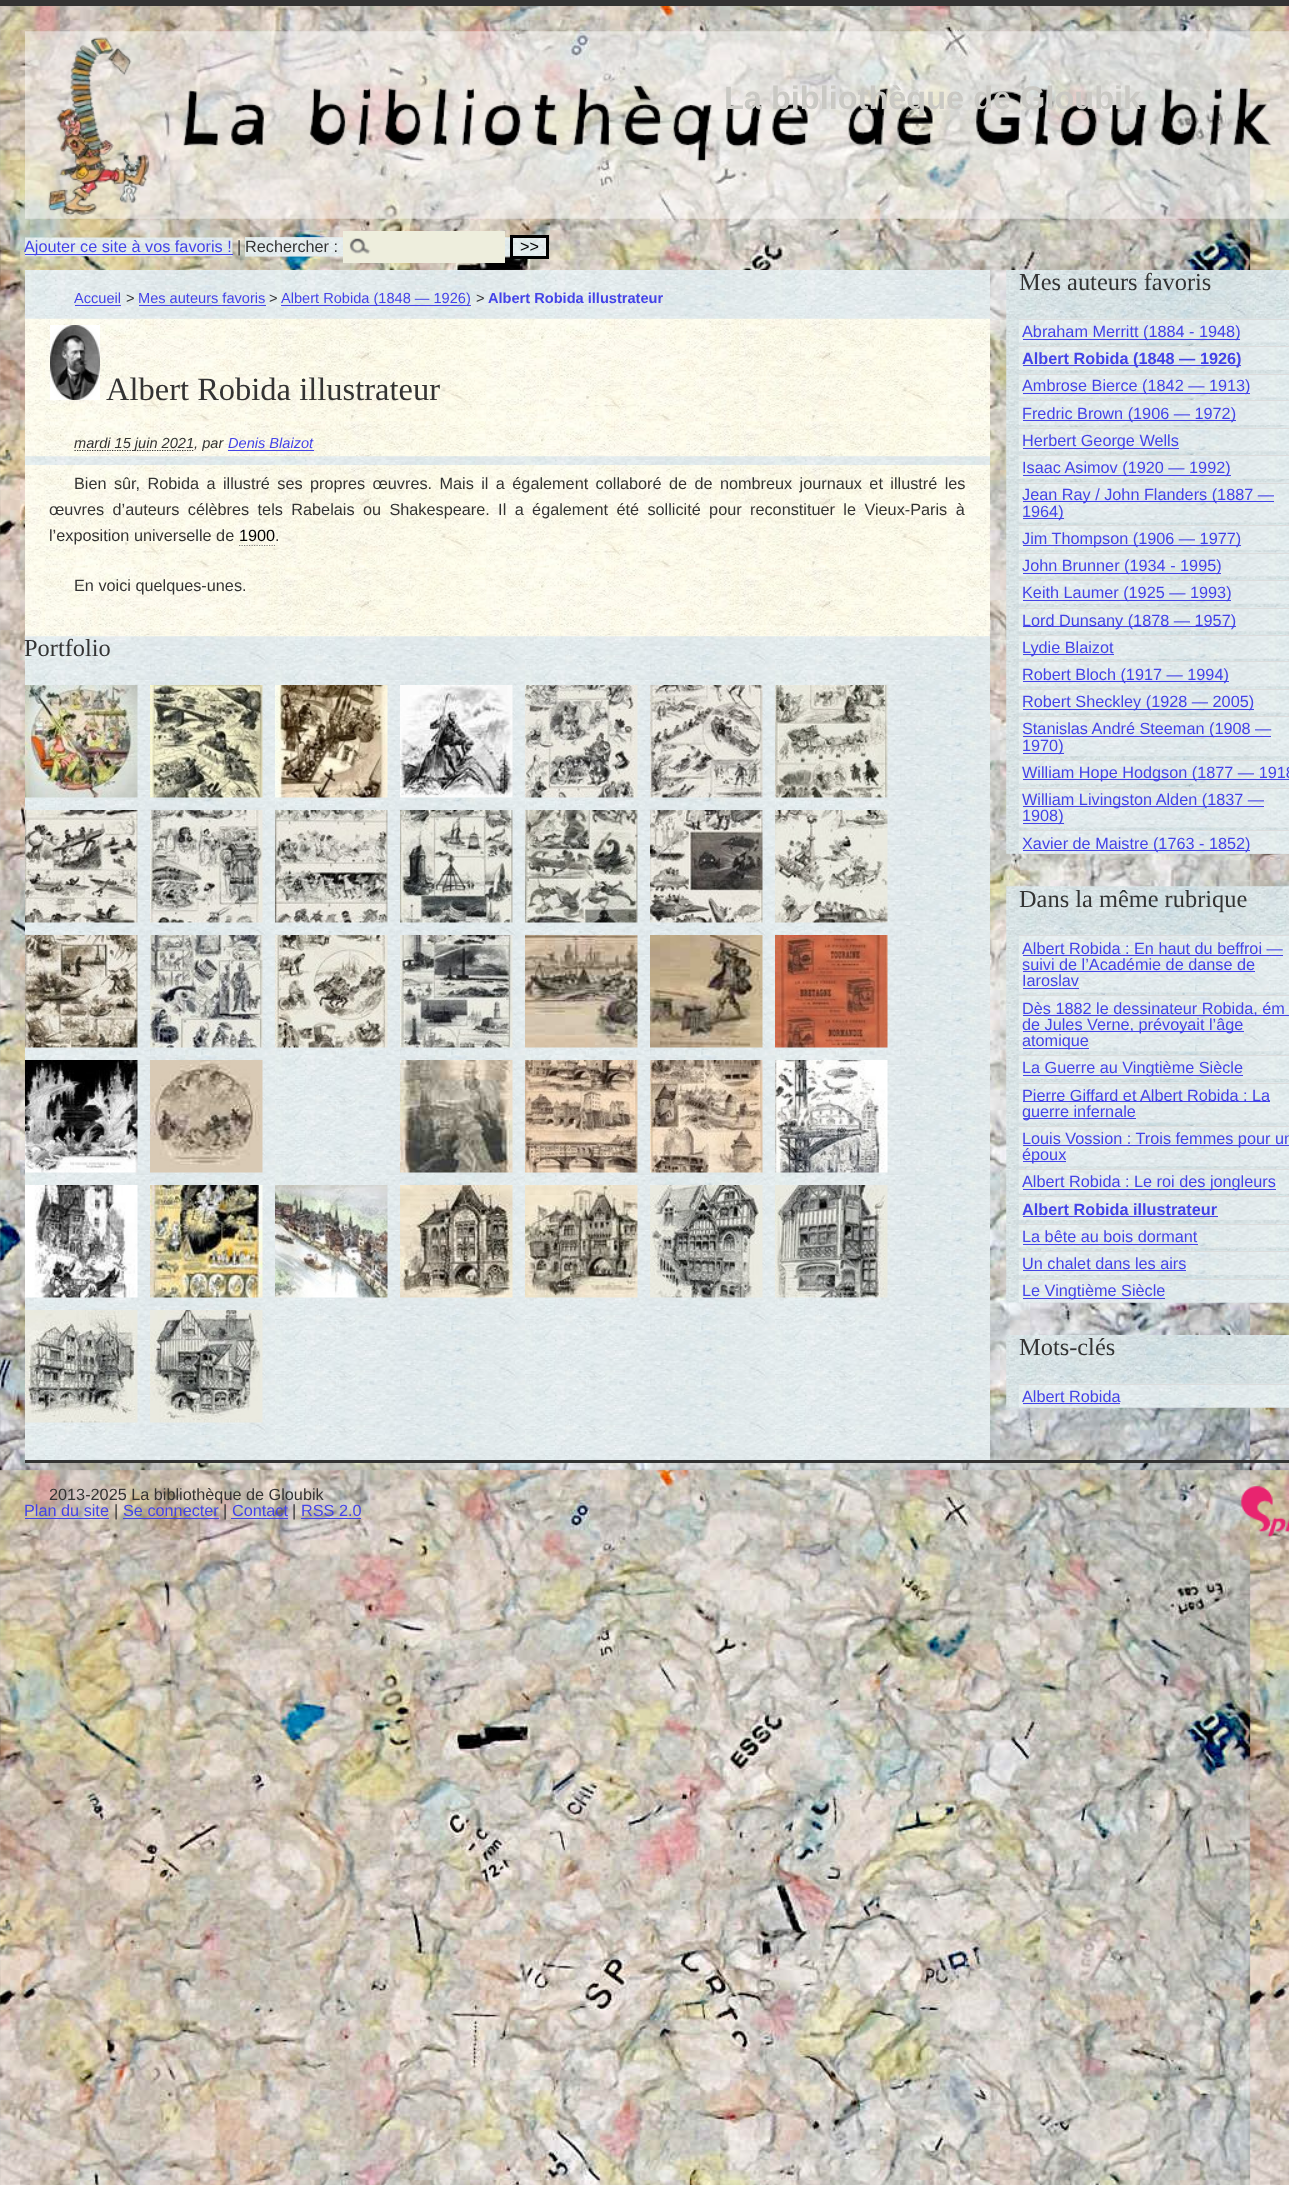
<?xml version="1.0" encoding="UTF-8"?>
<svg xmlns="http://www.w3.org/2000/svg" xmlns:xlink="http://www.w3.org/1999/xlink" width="1289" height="2185">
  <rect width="100%" height="100%" fill="#ffffff" />
  <image x="0" y="6" width="1289" height="2179" xlink:href="image1.png" />
  <rect width="1289" height="6" fill="#333333" />
  <image x="25" y="31" width="1264" height="188" xlink:href="image2.png" />
  <image x="25" y="237" width="208" height="20" xlink:href="image3.png" />
  <rect x="25" y="254" width="208" height="1" fill="#4343e8" />
  <image x="245" y="237" width="265" height="20" xlink:href="image4.png" />
  <image x="245" y="237" width="265" height="20" xlink:href="image5.png" />
  <image x="245" y="237" width="93" height="20" xlink:href="image6.png" />
  <rect x="343" y="231" width="162" height="32" fill="#eeeedd" />
  <image x="349" y="238" width="22" height="16" xlink:href="image7.png" />
  <image x="513" y="238" width="33" height="18" xlink:href="image8.png" />
  <rect x="511.5" y="236.5" width="36" height="21" fill="none" stroke="#000000" stroke-width="3" />
  <image x="25" y="270" width="965" height="1190" xlink:href="image9.png" />
  <image x="25" y="285" width="965" height="1150" xlink:href="image10.png" />
  <rect x="75" y="305" width="46" height="1" fill="#4343e8" />
  <rect x="139" y="305" width="127" height="1" fill="#4343e8" />
  <rect x="281" y="305" width="190" height="1" fill="#4343e8" />
  <image x="25" y="318" width="965" height="139" xlink:href="image11.png" />
  <image x="50" y="325" width="50" height="75" xlink:href="image12.png" />
  <path d="M 74.5 450.5 h 120" fill="none" stroke="#333333" stroke-width="1.2" stroke-dasharray="1.25 1.25" />
  <rect x="228" y="450" width="86" height="1" fill="#4343e8" />
  <image x="25" y="465" width="965" height="172" xlink:href="image13.png" />
  <path d="M 239 545.5 h 36" fill="none" stroke="#808080" stroke-width="1.2" stroke-dasharray="1.25 1.25" />
  <image x="25" y="685" width="113" height="113" xlink:href="image14.png" />
  <image x="150" y="685" width="113" height="113" xlink:href="image15.png" />
  <image x="275" y="685" width="113" height="113" xlink:href="image16.png" />
  <image x="400" y="685" width="113" height="113" xlink:href="image17.png" />
  <image x="525" y="685" width="113" height="113" xlink:href="image18.png" />
  <image x="650" y="685" width="113" height="113" xlink:href="image19.png" />
  <image x="775" y="685" width="113" height="113" xlink:href="image20.png" />
  <image x="25" y="810" width="113" height="113" xlink:href="image21.png" />
  <image x="150" y="810" width="113" height="113" xlink:href="image22.png" />
  <image x="275" y="810" width="113" height="113" xlink:href="image23.png" />
  <image x="400" y="810" width="113" height="113" xlink:href="image24.png" />
  <image x="525" y="810" width="113" height="113" xlink:href="image25.png" />
  <image x="650" y="810" width="113" height="113" xlink:href="image26.png" />
  <image x="775" y="810" width="113" height="113" xlink:href="image27.png" />
  <image x="25" y="935" width="113" height="113" xlink:href="image28.png" />
  <image x="150" y="935" width="113" height="113" xlink:href="image29.png" />
  <image x="275" y="935" width="113" height="113" xlink:href="image30.png" />
  <image x="400" y="935" width="113" height="113" xlink:href="image31.png" />
  <image x="525" y="935" width="113" height="113" xlink:href="image32.png" />
  <image x="650" y="935" width="113" height="113" xlink:href="image33.png" />
  <image x="775" y="935" width="113" height="113" xlink:href="image34.png" />
  <image x="25" y="1060" width="113" height="113" xlink:href="image35.png" />
  <image x="150" y="1060" width="113" height="113" xlink:href="image36.png" />
  <image x="400" y="1060" width="113" height="113" xlink:href="image37.png" />
  <image x="525" y="1060" width="113" height="113" xlink:href="image38.png" />
  <image x="650" y="1060" width="113" height="113" xlink:href="image39.png" />
  <image x="775" y="1060" width="113" height="113" xlink:href="image40.png" />
  <image x="25" y="1185" width="113" height="113" xlink:href="image41.png" />
  <image x="150" y="1185" width="113" height="113" xlink:href="image42.png" />
  <image x="275" y="1185" width="113" height="113" xlink:href="image43.png" />
  <image x="400" y="1185" width="113" height="113" xlink:href="image44.png" />
  <image x="525" y="1185" width="113" height="113" xlink:href="image45.png" />
  <image x="650" y="1185" width="113" height="113" xlink:href="image46.png" />
  <image x="775" y="1185" width="113" height="113" xlink:href="image47.png" />
  <image x="25" y="1310" width="113" height="113" xlink:href="image48.png" />
  <image x="150" y="1310" width="113" height="113" xlink:href="image49.png" />
  <image x="1006" y="270" width="283" height="584" xlink:href="image50.png" />
  <image x="1018" y="318" width="271" height="25" xlink:href="image51.png" />
  <rect x="1019" y="319" width="270" height="1" fill="#dddddd" />
  <rect x="1023" y="339" width="217" height="1" fill="#4343e8" />
  <image x="1018" y="346" width="271" height="24" xlink:href="image52.png" />
  <rect x="1019" y="346" width="270" height="1" fill="#dddddd" />
  <rect x="1023" y="365" width="218" height="1" fill="#4343e8" />
  <image x="1018" y="373" width="271" height="25" xlink:href="image51.png" />
  <rect x="1019" y="374" width="270" height="1" fill="#dddddd" />
  <rect x="1023" y="393" width="227" height="1" fill="#4343e8" />
  <image x="1018" y="400" width="271" height="25" xlink:href="image53.png" />
  <rect x="1019" y="400" width="270" height="1" fill="#dddddd" />
  <rect x="1023" y="420" width="213" height="1" fill="#4343e8" />
  <image x="1018" y="427" width="271" height="25" xlink:href="image54.png" />
  <rect x="1019" y="428" width="270" height="1" fill="#dddddd" />
  <rect x="1023" y="448" width="156" height="1" fill="#4343e8" />
  <image x="1018" y="455" width="271" height="24" xlink:href="image55.png" />
  <rect x="1019" y="455" width="270" height="1" fill="#dddddd" />
  <rect x="1023" y="475" width="208" height="1" fill="#4343e8" />
  <image x="1018" y="482" width="271" height="41" xlink:href="image56.png" />
  <rect x="1019" y="483" width="270" height="1" fill="#dddddd" />
  <rect x="1023" y="501" width="251" height="1" fill="#4343e8" />
  <rect x="1023" y="518" width="41" height="1" fill="#4343e8" />
  <image x="1018" y="525" width="271" height="25" xlink:href="image57.png" />
  <rect x="1019" y="525" width="270" height="1" fill="#dddddd" />
  <rect x="1023" y="545" width="218" height="1" fill="#4343e8" />
  <image x="1018" y="552" width="271" height="25" xlink:href="image58.png" />
  <rect x="1019" y="553" width="270" height="1" fill="#dddddd" />
  <rect x="1023" y="573" width="198" height="1" fill="#4343e8" />
  <image x="1018" y="580" width="271" height="24" xlink:href="image59.png" />
  <rect x="1019" y="580" width="270" height="1" fill="#dddddd" />
  <rect x="1023" y="600" width="208" height="1" fill="#4343e8" />
  <image x="1018" y="607" width="271" height="25" xlink:href="image58.png" />
  <rect x="1019" y="608" width="270" height="1" fill="#dddddd" />
  <rect x="1023" y="626" width="213" height="1" fill="#4343e8" />
  <image x="1018" y="635" width="271" height="24" xlink:href="image59.png" />
  <rect x="1019" y="635" width="270" height="1" fill="#dddddd" />
  <rect x="1023" y="654" width="91" height="1" fill="#4343e8" />
  <image x="1018" y="661" width="271" height="26" xlink:href="image60.png" />
  <rect x="1019" y="661" width="270" height="1" fill="#dddddd" />
  <rect x="1023" y="681" width="206" height="1" fill="#4343e8" />
  <image x="1018" y="688" width="271" height="25" xlink:href="image61.png" />
  <rect x="1019" y="689" width="270" height="1" fill="#dddddd" />
  <rect x="1023" y="709" width="231" height="1" fill="#4343e8" />
  <image x="1018" y="716" width="271" height="41" xlink:href="image62.png" />
  <rect x="1019" y="716" width="270" height="1" fill="#dddddd" />
  <rect x="1023" y="736" width="248" height="1" fill="#4343e8" />
  <rect x="1023" y="753" width="41" height="1" fill="#4343e8" />
  <image x="1018" y="760" width="271" height="24" xlink:href="image63.png" />
  <rect x="1019" y="760" width="270" height="1" fill="#dddddd" />
  <rect x="1023" y="779" width="266" height="1" fill="#4343e8" />
  <image x="1018" y="787" width="271" height="41" xlink:href="image64.png" />
  <rect x="1019" y="788" width="270" height="1" fill="#dddddd" />
  <rect x="1023" y="806" width="241" height="1" fill="#4343e8" />
  <rect x="1023" y="823" width="41" height="1" fill="#4343e8" />
  <image x="1018" y="830" width="271" height="24" xlink:href="image65.png" />
  <rect x="1019" y="830" width="270" height="1" fill="#dddddd" />
  <rect x="1023" y="850" width="227" height="1" fill="#4343e8" />
  <image x="1006" y="886" width="283" height="417" xlink:href="image66.png" />
  <image x="1018" y="935" width="271" height="58" xlink:href="image67.png" />
  <rect x="1019" y="935" width="270" height="1" fill="#dddddd" />
  <rect x="1023" y="955" width="260" height="1" fill="#4343e8" />
  <rect x="1023" y="971" width="232" height="1" fill="#4343e8" />
  <rect x="1023" y="988" width="56" height="1" fill="#4343e8" />
  <image x="1018" y="995" width="271" height="57" xlink:href="image68.png" />
  <rect x="1019" y="995" width="270" height="1" fill="#dddddd" />
  <rect x="1023" y="1015" width="266" height="1" fill="#4343e8" />
  <rect x="1023" y="1031" width="221" height="1" fill="#4343e8" />
  <rect x="1023" y="1048" width="66" height="1" fill="#4343e8" />
  <image x="1018" y="1055" width="271" height="24" xlink:href="image69.png" />
  <rect x="1019" y="1055" width="270" height="1" fill="#dddddd" />
  <rect x="1023" y="1075" width="220" height="1" fill="#4343e8" />
  <image x="1018" y="1082" width="271" height="41" xlink:href="image70.png" />
  <rect x="1019" y="1083" width="270" height="1" fill="#dddddd" />
  <rect x="1023" y="1101" width="247" height="1" fill="#4343e8" />
  <rect x="1023" y="1118" width="113" height="1" fill="#4343e8" />
  <image x="1018" y="1126" width="271" height="41" xlink:href="image71.png" />
  <rect x="1019" y="1126" width="270" height="1" fill="#dddddd" />
  <rect x="1023" y="1145" width="266" height="1" fill="#4343e8" />
  <rect x="1023" y="1161" width="43" height="1" fill="#4343e8" />
  <image x="1018" y="1168" width="271" height="26" xlink:href="image72.png" />
  <rect x="1019" y="1169" width="270" height="1" fill="#dddddd" />
  <rect x="1023" y="1189" width="253" height="1" fill="#4343e8" />
  <image x="1018" y="1196" width="271" height="24" xlink:href="image73.png" />
  <rect x="1019" y="1196" width="270" height="1" fill="#dddddd" />
  <rect x="1023" y="1216" width="195" height="1" fill="#4343e8" />
  <image x="1018" y="1223" width="271" height="25" xlink:href="image74.png" />
  <rect x="1019" y="1224" width="270" height="1" fill="#dddddd" />
  <rect x="1023" y="1244" width="175" height="1" fill="#4343e8" />
  <image x="1018" y="1251" width="271" height="24" xlink:href="image73.png" />
  <rect x="1019" y="1251" width="270" height="1" fill="#dddddd" />
  <rect x="1023" y="1270" width="163" height="1" fill="#4343e8" />
  <image x="1018" y="1278" width="271" height="25" xlink:href="image75.png" />
  <rect x="1019" y="1279" width="270" height="1" fill="#dddddd" />
  <rect x="1023" y="1298" width="142" height="1" fill="#4343e8" />
  <image x="1006" y="1335" width="283" height="73" xlink:href="image76.png" />
  <image x="1018" y="1383" width="271" height="25" xlink:href="image77.png" />
  <rect x="1019" y="1384" width="270" height="1" fill="#dddddd" />
  <rect x="1023" y="1403" width="97" height="1" fill="#4343e8" />
  <rect x="25" y="1460" width="1264" height="3" fill="#333333" />
  <rect x="25" y="1518" width="84" height="1" fill="#4343e8" />
  <rect x="123" y="1518" width="96" height="1" fill="#4343e8" />
  <rect x="231" y="1518" width="57" height="1" fill="#4343e8" />
  <rect x="301" y="1518" width="60" height="1" fill="#4343e8" />
  <image x="1241" y="1486" width="48" height="51" xlink:href="image78.png" />
  <text x="724" y="109" style="font-family: Liberation Sans; font-size: 32.5px; font-weight: bold; fill: #c9c8c3">La bibliothèque de Gloubik</text>
  <text x="24" y="252" style="font-family: Liberation Sans; font-size: 16.25px; fill: #4343e8">Ajouter ce site à vos favoris !</text>
  <text x="237" y="252" style="font-family: Liberation Sans; font-size: 16.25px; fill: #333333">|</text>
  <text x="245" y="252" style="font-family: Liberation Sans; font-size: 16.25px; fill: #333333">Rechercher :</text>
  <text x="520" y="252" style="font-family: Liberation Sans; font-size: 16.25px; fill: #000000">&gt;&gt;</text>
  <text x="74" y="303" style="font-family: Liberation Sans; font-size: 14.6px; fill: #4343e8">Accueil</text>
  <text x="126" y="303" style="font-family: Liberation Sans; font-size: 14.6px; fill: #333333">&gt;</text>
  <text x="138" y="303" style="font-family: Liberation Sans; font-size: 14.6px; fill: #4343e8">Mes auteurs favoris</text>
  <text x="269" y="303" style="font-family: Liberation Sans; font-size: 14.6px; fill: #333333">&gt;</text>
  <text x="281" y="303" style="font-family: Liberation Sans; font-size: 14.6px; fill: #4343e8">Albert Robida (1848 — 1926)</text>
  <text x="476" y="303" style="font-family: Liberation Sans; font-size: 14.6px; fill: #333333">&gt;</text>
  <text x="488" y="303" style="font-family: Liberation Sans; font-size: 14.6px; font-weight: bold; fill: #4343e8">Albert Robida illustrateur</text>
  <text x="106" y="400" style="font-family: Liberation Serif; font-size: 32.5px; fill: #333333">Albert Robida illustrateur</text>
  <text x="74" y="448" style="font-family: Liberation Sans; font-size: 14.6px; font-style: italic; fill: #333333">mardi 15 juin 2021, par</text>
  <text x="228" y="448" style="font-family: Liberation Sans; font-size: 14.6px; font-style: italic; fill: #4343e8">Denis Blaizot</text>
  <text x="74" y="489" word-spacing="2.9" style="font-family: Liberation Sans; font-size: 16.25px; fill: #333333">Bien sûr, Robida a illustré ses propres œuvres. Mais il a également collaboré de de nombreux journaux et illustré les</text>
  <text x="49" y="515" word-spacing="3.9" style="font-family: Liberation Sans; font-size: 16.25px; fill: #333333">œuvres d’auteurs célèbres tels Rabelais ou Shakespeare. Il a également été sollicité pour reconstituer le Vieux-Paris à</text>
  <text x="49" y="541" style="font-family: Liberation Sans; font-size: 16.25px; fill: #333333">l’exposition universelle de</text>
  <text x="239" y="541" style="font-family: Liberation Sans; font-size: 16.25px; fill: #000000">1900</text>
  <text x="275" y="541" style="font-family: Liberation Sans; font-size: 16.25px; fill: #333333">.</text>
  <text x="74" y="591" style="font-family: Liberation Sans; font-size: 16.25px; fill: #333333">En voici quelques-unes.</text>
  <text x="24" y="656" style="font-family: Liberation Serif; font-size: 24.4px; fill: #333333">Portfolio</text>
  <text x="1019" y="290" style="font-family: Liberation Serif; font-size: 24.4px; fill: #333333">Mes auteurs favoris</text>
  <text x="1022" y="337" style="font-family: Liberation Sans; font-size: 16.25px; fill: #4343e8">Abraham Merritt (1884 - 1948)</text>
  <text x="1022" y="364" style="font-family: Liberation Sans; font-size: 16.25px; font-weight: bold; fill: #4343e8">Albert Robida (1848 — 1926)</text>
  <text x="1022" y="391" style="font-family: Liberation Sans; font-size: 16.25px; fill: #4343e8">Ambrose Bierce (1842 — 1913)</text>
  <text x="1022" y="419" style="font-family: Liberation Sans; font-size: 16.25px; fill: #4343e8">Fredric Brown (1906 — 1972)</text>
  <text x="1022" y="446" style="font-family: Liberation Sans; font-size: 16.25px; fill: #4343e8">Herbert George Wells</text>
  <text x="1022" y="473" style="font-family: Liberation Sans; font-size: 16.25px; fill: #4343e8">Isaac Asimov (1920 — 1992)</text>
  <text x="1022" y="500" style="font-family: Liberation Sans; font-size: 16.25px; fill: #4343e8">Jean Ray / John Flanders (1887 —</text>
  <text x="1022" y="517" style="font-family: Liberation Sans; font-size: 16.25px; fill: #4343e8">1964)</text>
  <text x="1022" y="544" style="font-family: Liberation Sans; font-size: 16.25px; fill: #4343e8">Jim Thompson (1906 — 1977)</text>
  <text x="1022" y="571" style="font-family: Liberation Sans; font-size: 16.25px; fill: #4343e8">John Brunner (1934 - 1995)</text>
  <text x="1022" y="598" style="font-family: Liberation Sans; font-size: 16.25px; fill: #4343e8">Keith Laumer (1925 — 1993)</text>
  <text x="1022" y="626" style="font-family: Liberation Sans; font-size: 16.25px; fill: #4343e8">Lord Dunsany (1878 — 1957)</text>
  <text x="1022" y="653" style="font-family: Liberation Sans; font-size: 16.25px; fill: #4343e8">Lydie Blaizot</text>
  <text x="1022" y="680" style="font-family: Liberation Sans; font-size: 16.25px; fill: #4343e8">Robert Bloch (1917 — 1994)</text>
  <text x="1022" y="707" style="font-family: Liberation Sans; font-size: 16.25px; fill: #4343e8">Robert Sheckley (1928 — 2005)</text>
  <text x="1022" y="734" style="font-family: Liberation Sans; font-size: 16.25px; fill: #4343e8">Stanislas André Steeman (1908 —</text>
  <text x="1022" y="751" style="font-family: Liberation Sans; font-size: 16.25px; fill: #4343e8">1970)</text>
  <text x="1022" y="778" style="font-family: Liberation Sans; font-size: 16.25px; fill: #4343e8">William Hope Hodgson (1877 — 1918</text>
  <text x="1022" y="805" style="font-family: Liberation Sans; font-size: 16.25px; fill: #4343e8">William Livingston Alden (1837 —</text>
  <text x="1022" y="821" style="font-family: Liberation Sans; font-size: 16.25px; fill: #4343e8">1908)</text>
  <text x="1022" y="849" style="font-family: Liberation Sans; font-size: 16.25px; fill: #4343e8">Xavier de Maistre (1763 - 1852)</text>
  <text x="1019" y="907" style="font-family: Liberation Serif; font-size: 24.4px; fill: #333333">Dans la même rubrique</text>
  <text x="1022" y="954" style="font-family: Liberation Sans; font-size: 16.25px; fill: #4343e8">Albert Robida : En haut du beffroi —</text>
  <text x="1022" y="970" style="font-family: Liberation Sans; font-size: 16.25px; fill: #4343e8">suivi de l’Académie de danse de</text>
  <text x="1022" y="986" style="font-family: Liberation Sans; font-size: 16.25px; fill: #4343e8">Iaroslav</text>
  <text x="1022" y="1014" style="font-family: Liberation Sans; font-size: 16.25px; fill: #4343e8">Dès 1882 le dessinateur Robida, ém</text>
  <text x="1022" y="1030" style="font-family: Liberation Sans; font-size: 16.25px; fill: #4343e8">de Jules Verne, prévoyait l’âge</text>
  <text x="1022" y="1046" style="font-family: Liberation Sans; font-size: 16.25px; fill: #4343e8">atomique</text>
  <text x="1022" y="1073" style="font-family: Liberation Sans; font-size: 16.25px; fill: #4343e8">La Guerre au Vingtième Siècle</text>
  <text x="1022" y="1101" style="font-family: Liberation Sans; font-size: 16.25px; fill: #4343e8">Pierre Giffard et Albert Robida : La</text>
  <text x="1022" y="1117" style="font-family: Liberation Sans; font-size: 16.25px; fill: #4343e8">guerre infernale</text>
  <text x="1022" y="1144" style="font-family: Liberation Sans; font-size: 16.25px; fill: #4343e8">Louis Vossion : Trois femmes pour un</text>
  <text x="1022" y="1160" style="font-family: Liberation Sans; font-size: 16.25px; fill: #4343e8">époux</text>
  <text x="1022" y="1187" style="font-family: Liberation Sans; font-size: 16.25px; fill: #4343e8">Albert Robida : Le roi des jongleurs</text>
  <text x="1022" y="1215" style="font-family: Liberation Sans; font-size: 16.25px; font-weight: bold; fill: #4343e8">Albert Robida illustrateur</text>
  <text x="1022" y="1242" style="font-family: Liberation Sans; font-size: 16.25px; fill: #4343e8">La bête au bois dormant</text>
  <text x="1022" y="1269" style="font-family: Liberation Sans; font-size: 16.25px; fill: #4343e8">Un chalet dans les airs</text>
  <text x="1022" y="1296" style="font-family: Liberation Sans; font-size: 16.25px; fill: #4343e8">Le Vingtième Siècle</text>
  <text x="1019" y="1355" style="font-family: Liberation Serif; font-size: 24.4px; fill: #333333">Mots-clés</text>
  <text x="1022" y="1402" style="font-family: Liberation Sans; font-size: 16.25px; fill: #4343e8">Albert Robida</text>
  <text x="49" y="1500" style="font-family: Liberation Sans; font-size: 16.25px; fill: #333333">2013-2025 La bibliothèque de Gloubik</text>
  <text x="24" y="1516" style="font-family: Liberation Sans; font-size: 16.25px; fill: #4343e8">Plan du site</text>
  <text x="114" y="1516" style="font-family: Liberation Sans; font-size: 16.25px; fill: #333333">|</text>
  <text x="123" y="1516" style="font-family: Liberation Sans; font-size: 16.25px; fill: #4343e8">Se connecter</text>
  <text x="223" y="1516" style="font-family: Liberation Sans; font-size: 16.25px; fill: #333333">|</text>
  <text x="232" y="1516" style="font-family: Liberation Sans; font-size: 16.25px; fill: #4343e8">Contact</text>
  <text x="292" y="1516" style="font-family: Liberation Sans; font-size: 16.25px; fill: #333333">|</text>
  <text x="301" y="1516" style="font-family: Liberation Sans; font-size: 16.25px; fill: #4343e8">RSS 2.0</text>
</svg>
